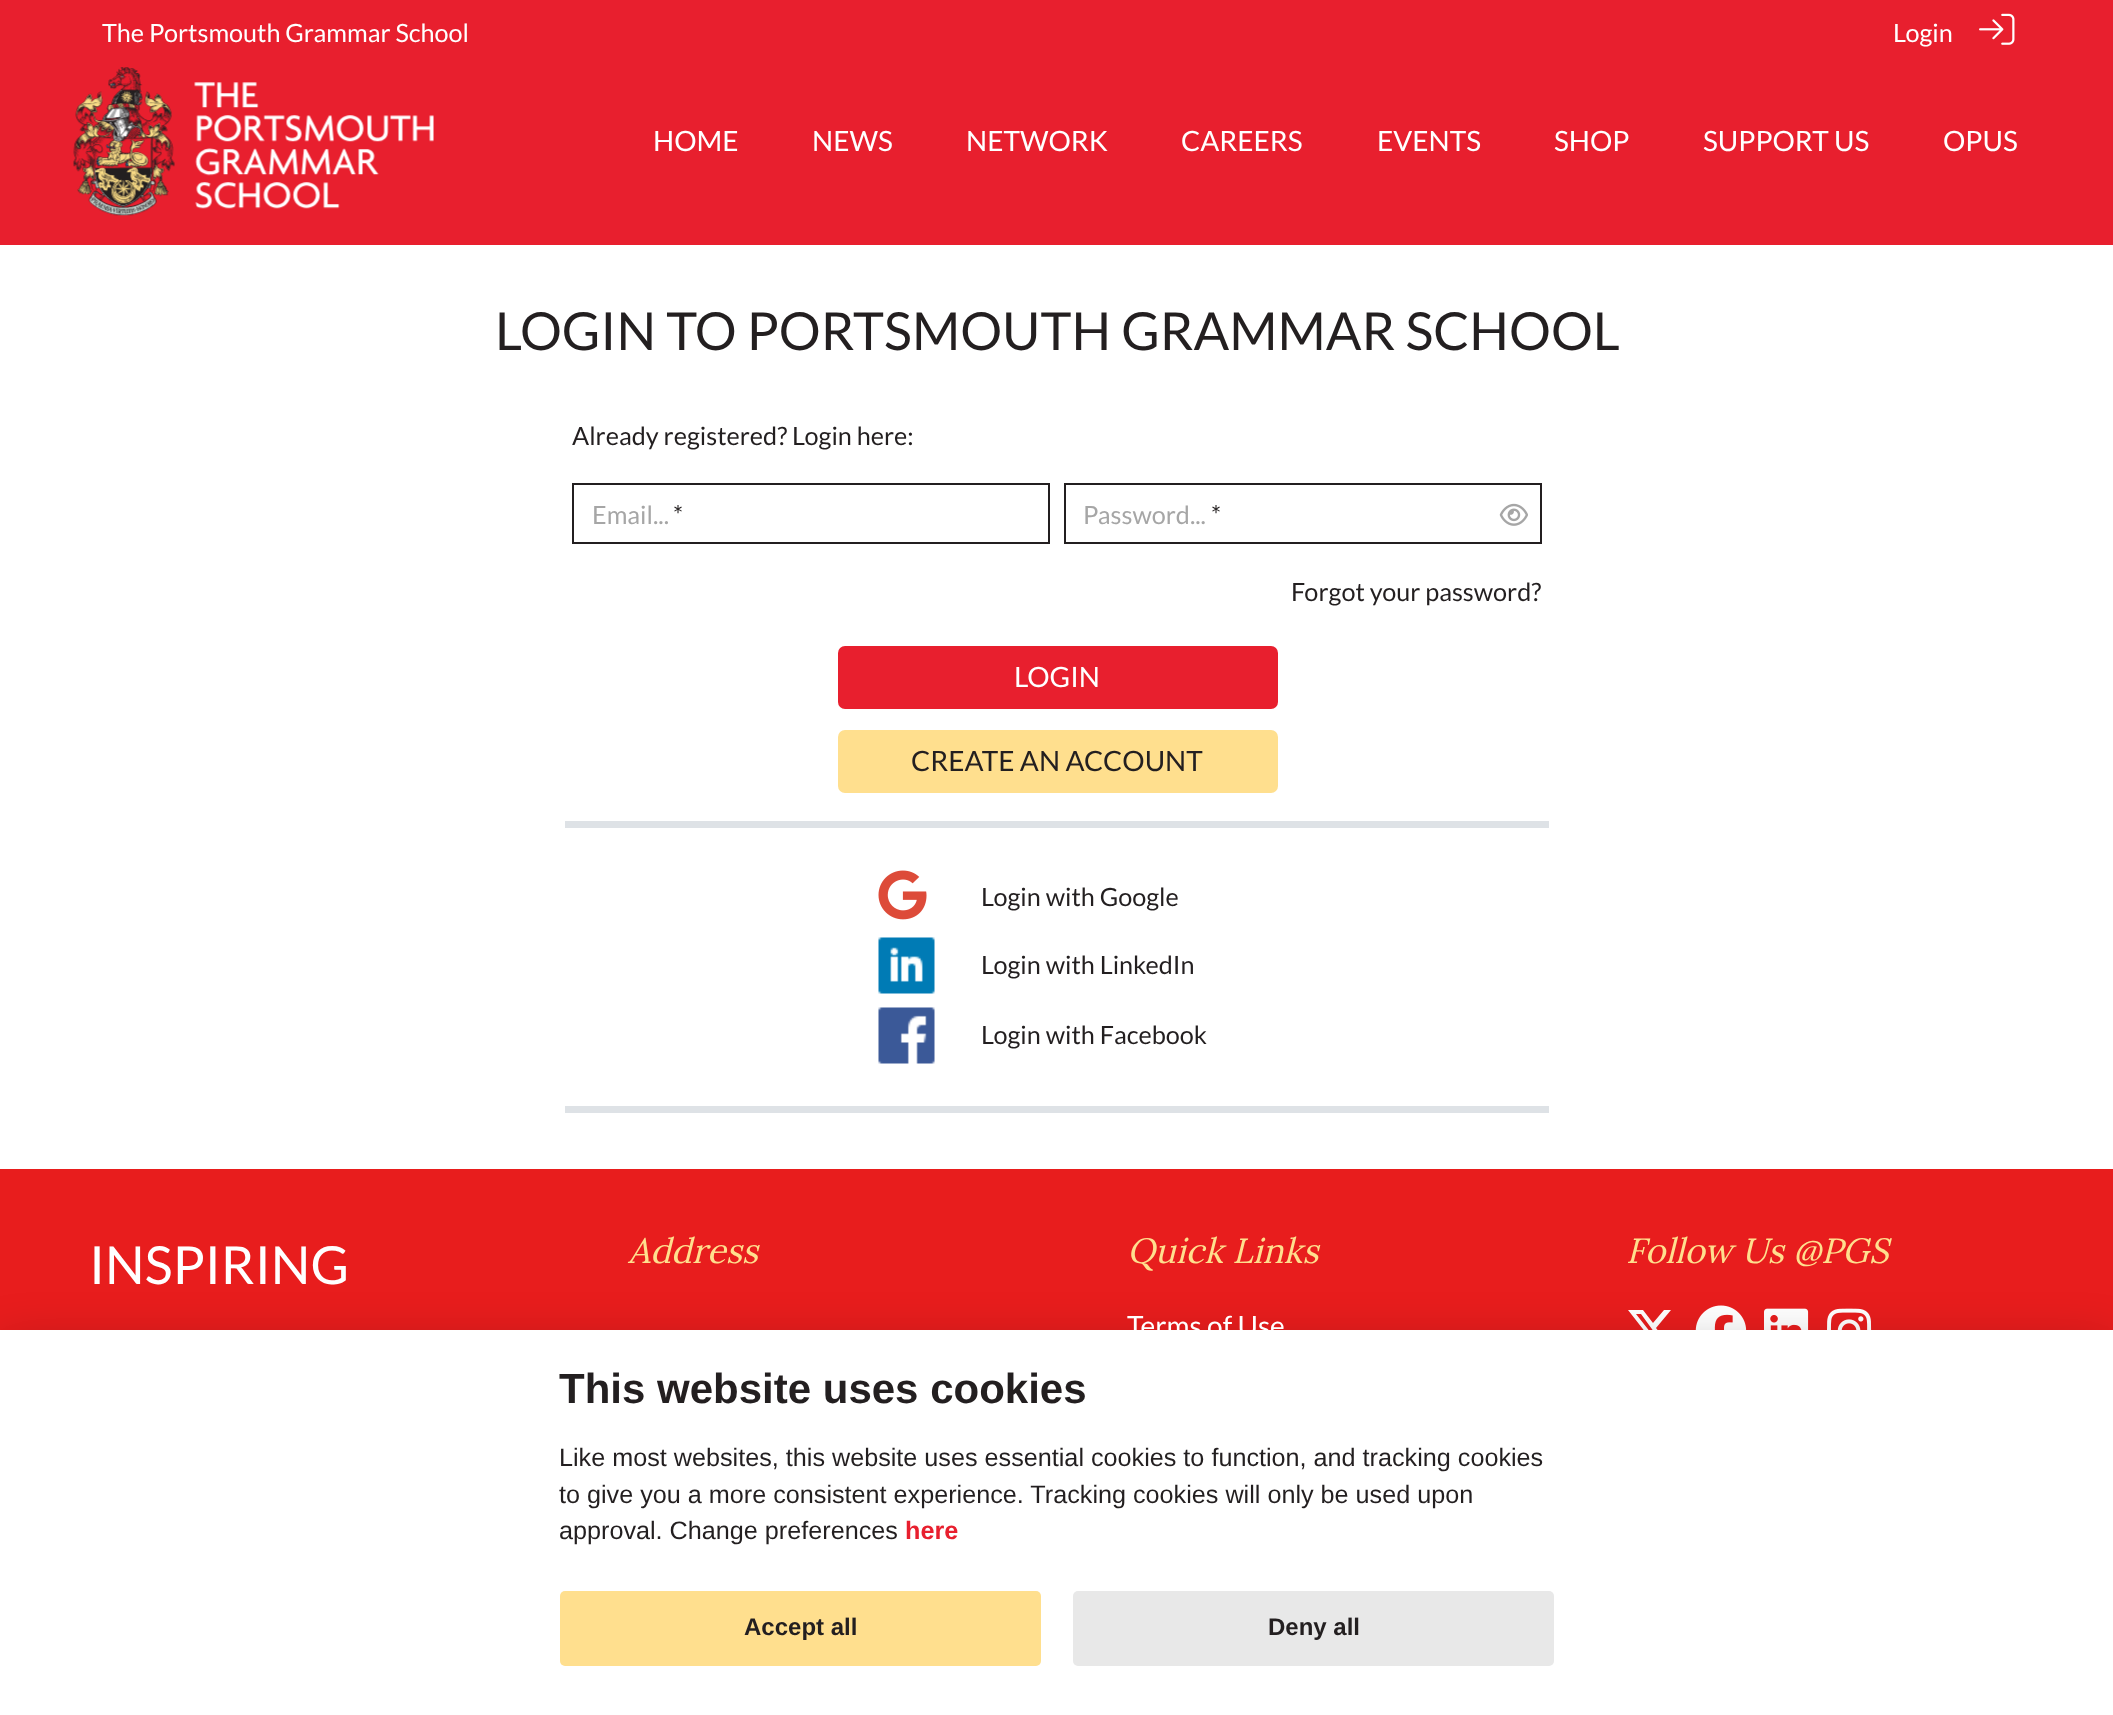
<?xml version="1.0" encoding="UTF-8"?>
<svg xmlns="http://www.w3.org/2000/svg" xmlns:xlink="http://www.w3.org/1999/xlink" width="2113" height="1715">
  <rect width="100%" height="100%" fill="#e81d1d" />
  <rect width="2113" height="245" fill="#e81f2e" />
  <image x="1979" y="13" width="36" height="32" xlink:href="image1.png" />
  <image x="73" y="67" width="361" height="149" xlink:href="image2.png" />
  <rect y="245" width="2113" height="924" fill="#ffffff" />
  <rect x="573" y="484" width="476" height="59" fill="none" stroke="#231f20" stroke-width="2" />
  <rect x="1065" y="484" width="476" height="59" fill="none" stroke="#231f20" stroke-width="2" />
  <image x="1499" y="503" width="29" height="23" xlink:href="image3.png" />
  <rect x="838" y="646" width="440" height="63" rx="7" fill="#e81f2e" />
  <rect x="838" y="730" width="440" height="63" rx="7" fill="#ffdf8e" />
  <rect x="565" y="821" width="984" height="7" fill="#dee2e6" />
  <image x="878" y="870" width="49" height="50" xlink:href="image4.png" />
  <image x="878" y="937" width="57" height="57" xlink:href="image5.png" />
  <image x="878" y="1007" width="57" height="57" xlink:href="image6.png" />
  <rect x="565" y="1106" width="984" height="7" fill="#dee2e6" />
  <path d="M 1664 1310 h 7 l -15 18 l 18 23 h -14 l -11 -14 l -13 14 h -7 l 17 -18 l -18 -23 h 15 l 10 13 z m -2 37 h 3 l -24 -33 h -5 z" fill="#ffffff" />
  <image x="1695" y="1305" width="52" height="25" xlink:href="image7.png" />
  <image x="1764" y="1308" width="45" height="22" xlink:href="image8.png" />
  <image x="1827" y="1308" width="45" height="22" xlink:href="image9.png" />
  <rect y="1348" width="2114" height="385" fill="#020203" fill-opacity="0.28" filter="blur(26px)" />
  <rect y="1330" width="2113" height="385" fill="#ffffff" />
  <rect x="560" y="1591" width="481" height="75" rx="5" fill="#ffdf8e" />
  <rect x="1073" y="1591" width="481" height="75" rx="5" fill="#e8e8e8" />
  <text x="102" y="42" style="font-family: Lato; font-size: 25.2px; fill: #ffffff">The Portsmouth Grammar School</text>
  <text x="1893" y="42" style="font-family: Lato; font-size: 25.2px; fill: #ffffff">Login</text>
  <text x="653" y="151" style="font-family: Lato; font-size: 28px; fill: #ffffff">HOME</text>
  <text x="812" y="151" style="font-family: Lato; font-size: 28px; fill: #ffffff">NEWS</text>
  <text x="966" y="151" style="font-family: Lato; font-size: 28px; fill: #ffffff">NETWORK</text>
  <text x="1181" y="151" style="font-family: Lato; font-size: 28px; fill: #ffffff">CAREERS</text>
  <text x="1377" y="151" style="font-family: Lato; font-size: 28px; fill: #ffffff">EVENTS</text>
  <text x="1554" y="151" style="font-family: Lato; font-size: 28px; fill: #ffffff">SHOP</text>
  <text x="1703" y="151" style="font-family: Lato; font-size: 28px; fill: #ffffff">SUPPORT US</text>
  <text x="1943" y="151" style="font-family: Lato; font-size: 28px; fill: #ffffff">OPUS</text>
  <text x="495" y="350" style="font-family: Lato; font-size: 52.5px; fill: #231f20">LOGIN TO PORTSMOUTH GRAMMAR SCHOOL</text>
  <text x="572" y="445" style="font-family: Lato; font-size: 25.2px; fill: #231f20">Already registered? Login here:</text>
  <text x="592" y="524" style="font-family: Lato; font-size: 25.2px; fill: #a6a6a6">Email...</text>
  <text x="673" y="524" style="font-family: Lato; font-size: 25.2px; fill: #231f20">*</text>
  <text x="1083" y="524" style="font-family: Lato; font-size: 25.2px; fill: #a6a6a6">Password...</text>
  <text x="1211" y="524" style="font-family: Lato; font-size: 25.2px; fill: #231f20">*</text>
  <text x="1291" y="601" style="font-family: Lato; font-size: 25.2px; fill: #231f20">Forgot your password?</text>
  <text x="1014" y="687" style="font-family: Lato; font-size: 28px; fill: #ffffff">LOGIN</text>
  <text x="911" y="771" style="font-family: Lato; font-size: 28px; fill: #231f20">CREATE AN ACCOUNT</text>
  <text x="981" y="906" style="font-family: Lato; font-size: 25.2px; fill: #231f20">Login with Google</text>
  <text x="981" y="974" style="font-family: Lato; font-size: 25.2px; fill: #231f20">Login with LinkedIn</text>
  <text x="981" y="1044" style="font-family: Lato; font-size: 25.2px; fill: #231f20">Login with Facebook</text>
  <text x="89" y="1284" style="font-family: Lato; font-size: 52.5px; fill: #ffffff">INSPIRING</text>
  <text x="628" y="1263" style="font-family: Lora; font-size: 35px; font-style: italic; fill: #ffdf8e">Address</text>
  <text x="1127" y="1263" style="font-family: Lora; font-size: 35px; font-style: italic; fill: #ffdf8e">Quick Links</text>
  <text x="1127" y="1336" style="font-family: Lato; font-size: 28px; fill: #ffffff">Terms of Use</text>
  <text x="1626" y="1263" style="font-family: Lora; font-size: 35px; font-style: italic; fill: #ffdf8e">Follow Us @PGS</text>
  <text x="559" y="1403" style="font-family: Liberation Sans; font-size: 42px; font-weight: bold; fill: #231f20">This website uses cookies</text>
  <text x="559" y="1466" style="font-family: Liberation Sans; font-size: 25.2px; fill: #231f20">Like most websites, this website uses essential cookies to function, and tracking cookies</text>
  <text x="559" y="1503" style="font-family: Liberation Sans; font-size: 25.2px; fill: #231f20">to give you a more consistent experience. Tracking cookies will only be used upon</text>
  <text x="559" y="1539" style="font-family: Liberation Sans; font-size: 25.2px; fill: #231f20">approval. Change preferences</text>
  <text x="905" y="1539" style="font-family: Liberation Sans; font-size: 25.2px; font-weight: bold; fill: #e81f2e">here</text>
  <text x="744" y="1635" style="font-family: Liberation Sans; font-size: 24px; font-weight: bold; fill: #231f20">Accept all</text>
  <text x="1268" y="1635" style="font-family: Liberation Sans; font-size: 24px; font-weight: bold; fill: #231f20">Deny all</text>
</svg>
